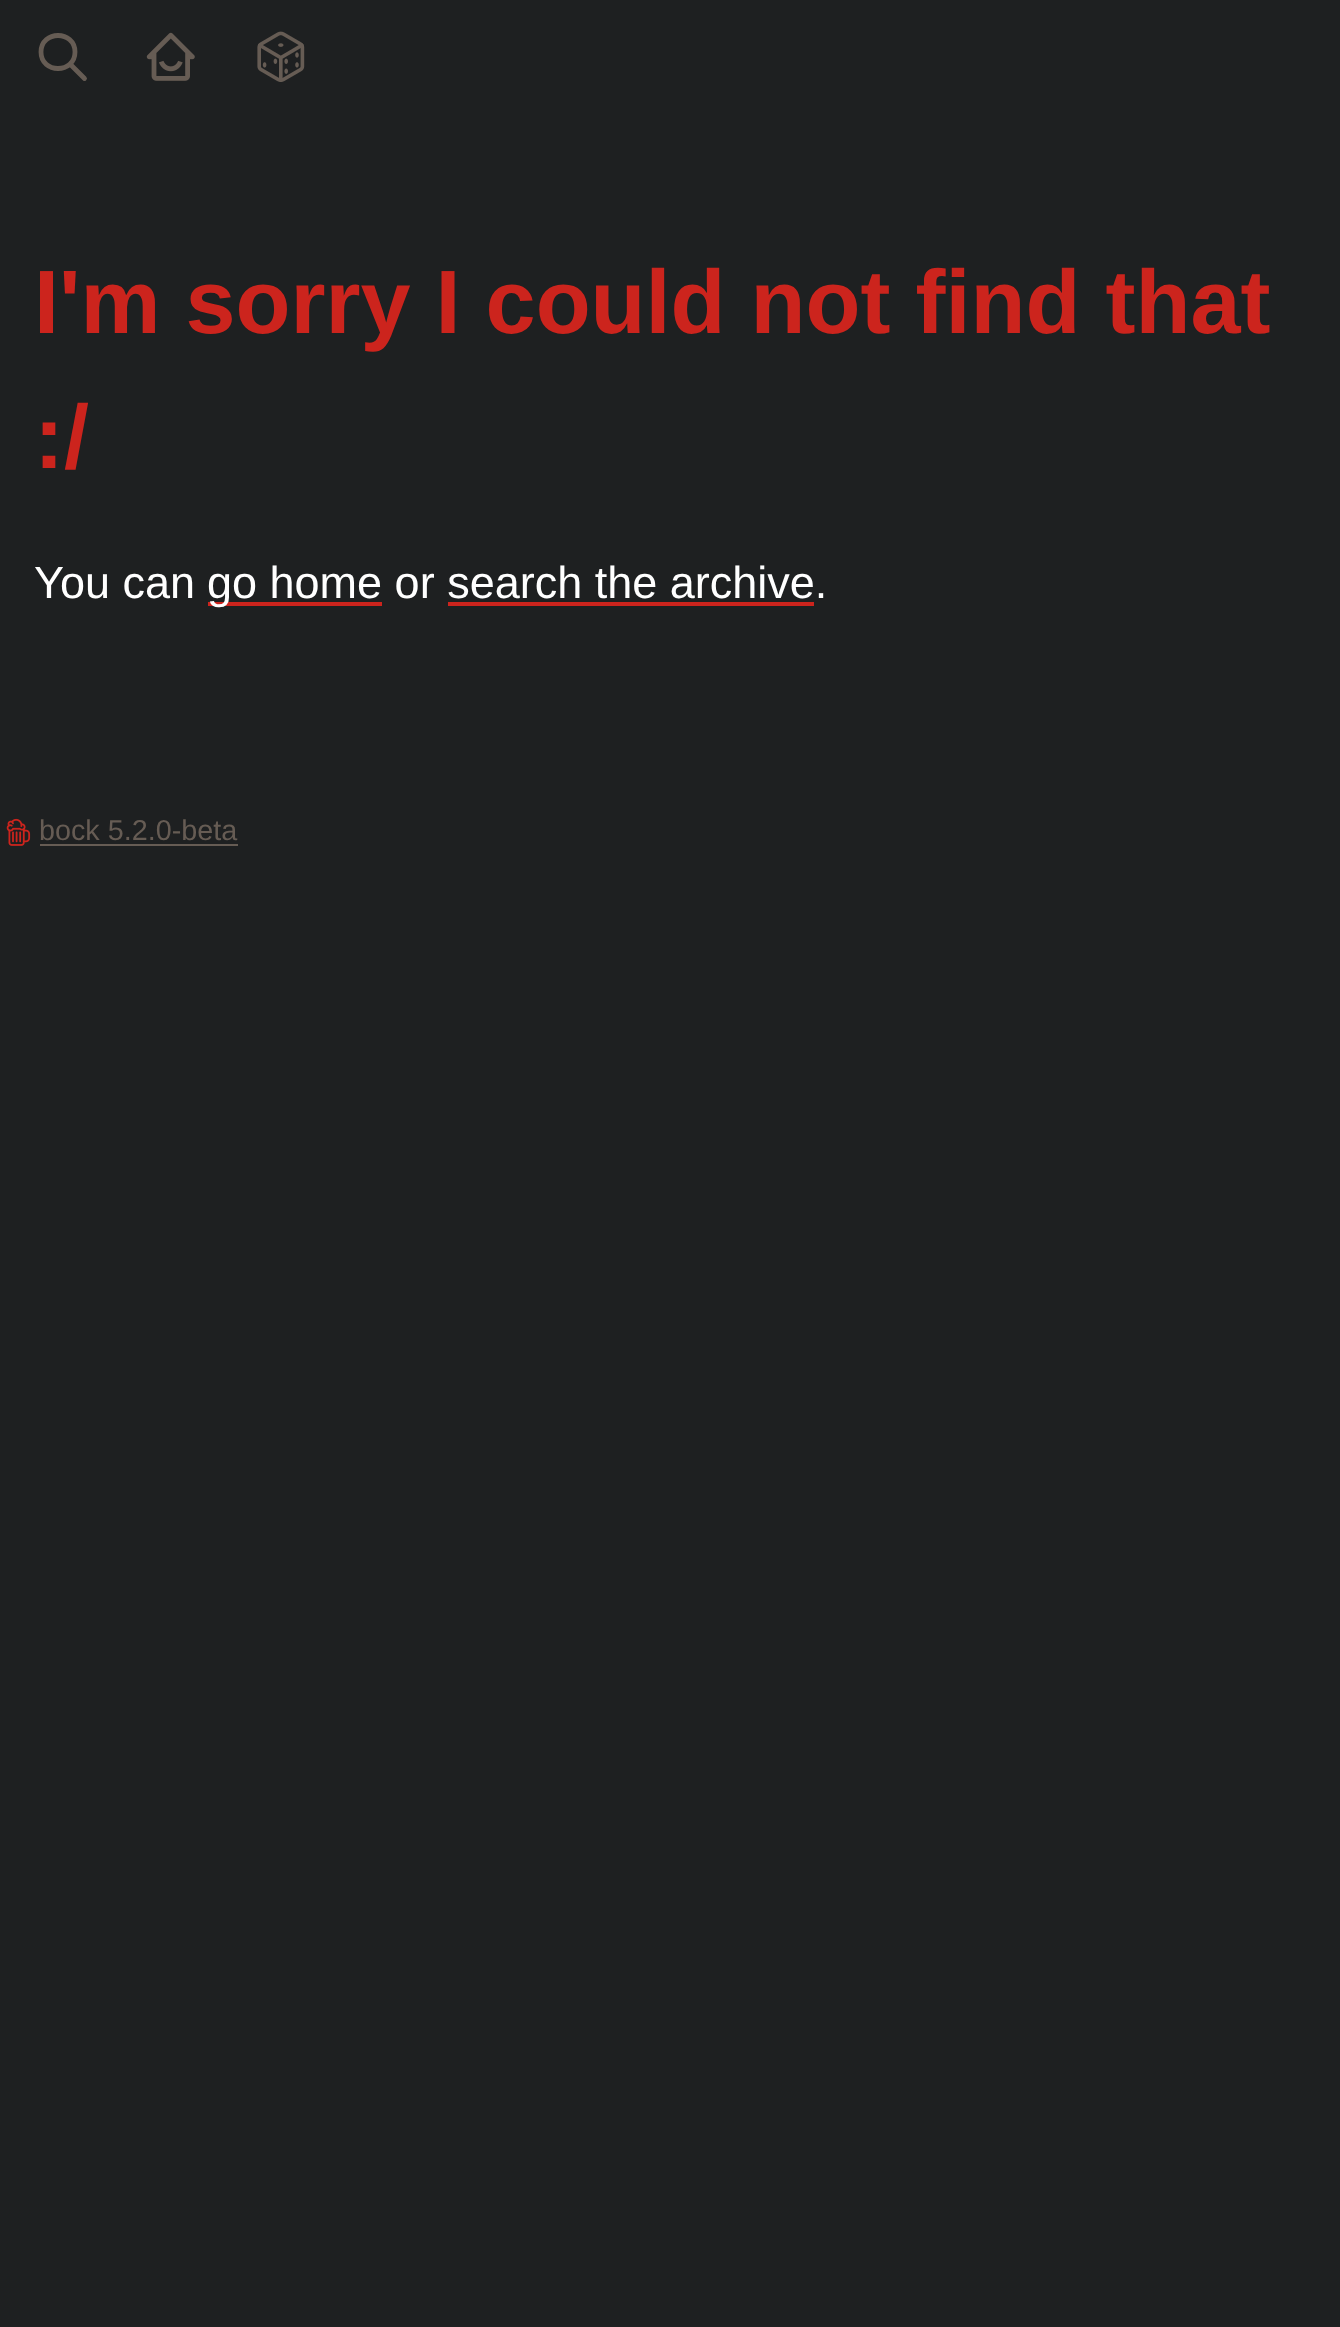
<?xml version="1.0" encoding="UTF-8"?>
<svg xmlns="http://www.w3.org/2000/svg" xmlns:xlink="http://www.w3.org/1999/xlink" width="1340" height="2327">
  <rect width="100%" height="100%" fill="#1e2021" />
  <path d="M 84.5 78.5 l -14.5 -14.5 m 5 -12 c 0 22 -34 22 -34 0 c 0 -22 34 -22 34 0 z" fill="none" stroke="#665c54" stroke-width="4.8" stroke-linecap="round" stroke-linejoin="round" />
  <image x="146" y="32" width="49" height="49" xlink:href="image1.png" />
  <image x="257" y="31" width="48" height="51" xlink:href="image2.png" />
  <rect x="208" y="602" width="174" height="4" fill="#cc241d" />
  <image x="6" y="818" width="25" height="28" xlink:href="image3.png" />
  <rect x="40" y="844" width="198" height="2" fill="#665c54" />
  <text x="34" y="333" style="font-family: Liberation Sans; font-size: 90px; font-weight: bold; fill: #cc241d">I'm sorry I could not find that</text>
  <text x="34" y="468" style="font-family: Liberation Sans; font-size: 90px; font-weight: bold; fill: #cc241d">:/</text>
  <text x="34" y="598" style="font-family: Liberation Sans; font-size: 45px; fill: #ffffff">You can</text>
  <text x="207" y="598" style="font-family: Liberation Sans; font-size: 45px; fill: #ffffff">go home or search the archive.</text>
  <rect x="448" y="602" width="366" height="4" fill="#cc241d" />
  <text x="39" y="840" style="font-family: Liberation Sans; font-size: 28.75px; fill: #665c54">bock 5.2.0-beta</text>
</svg>
